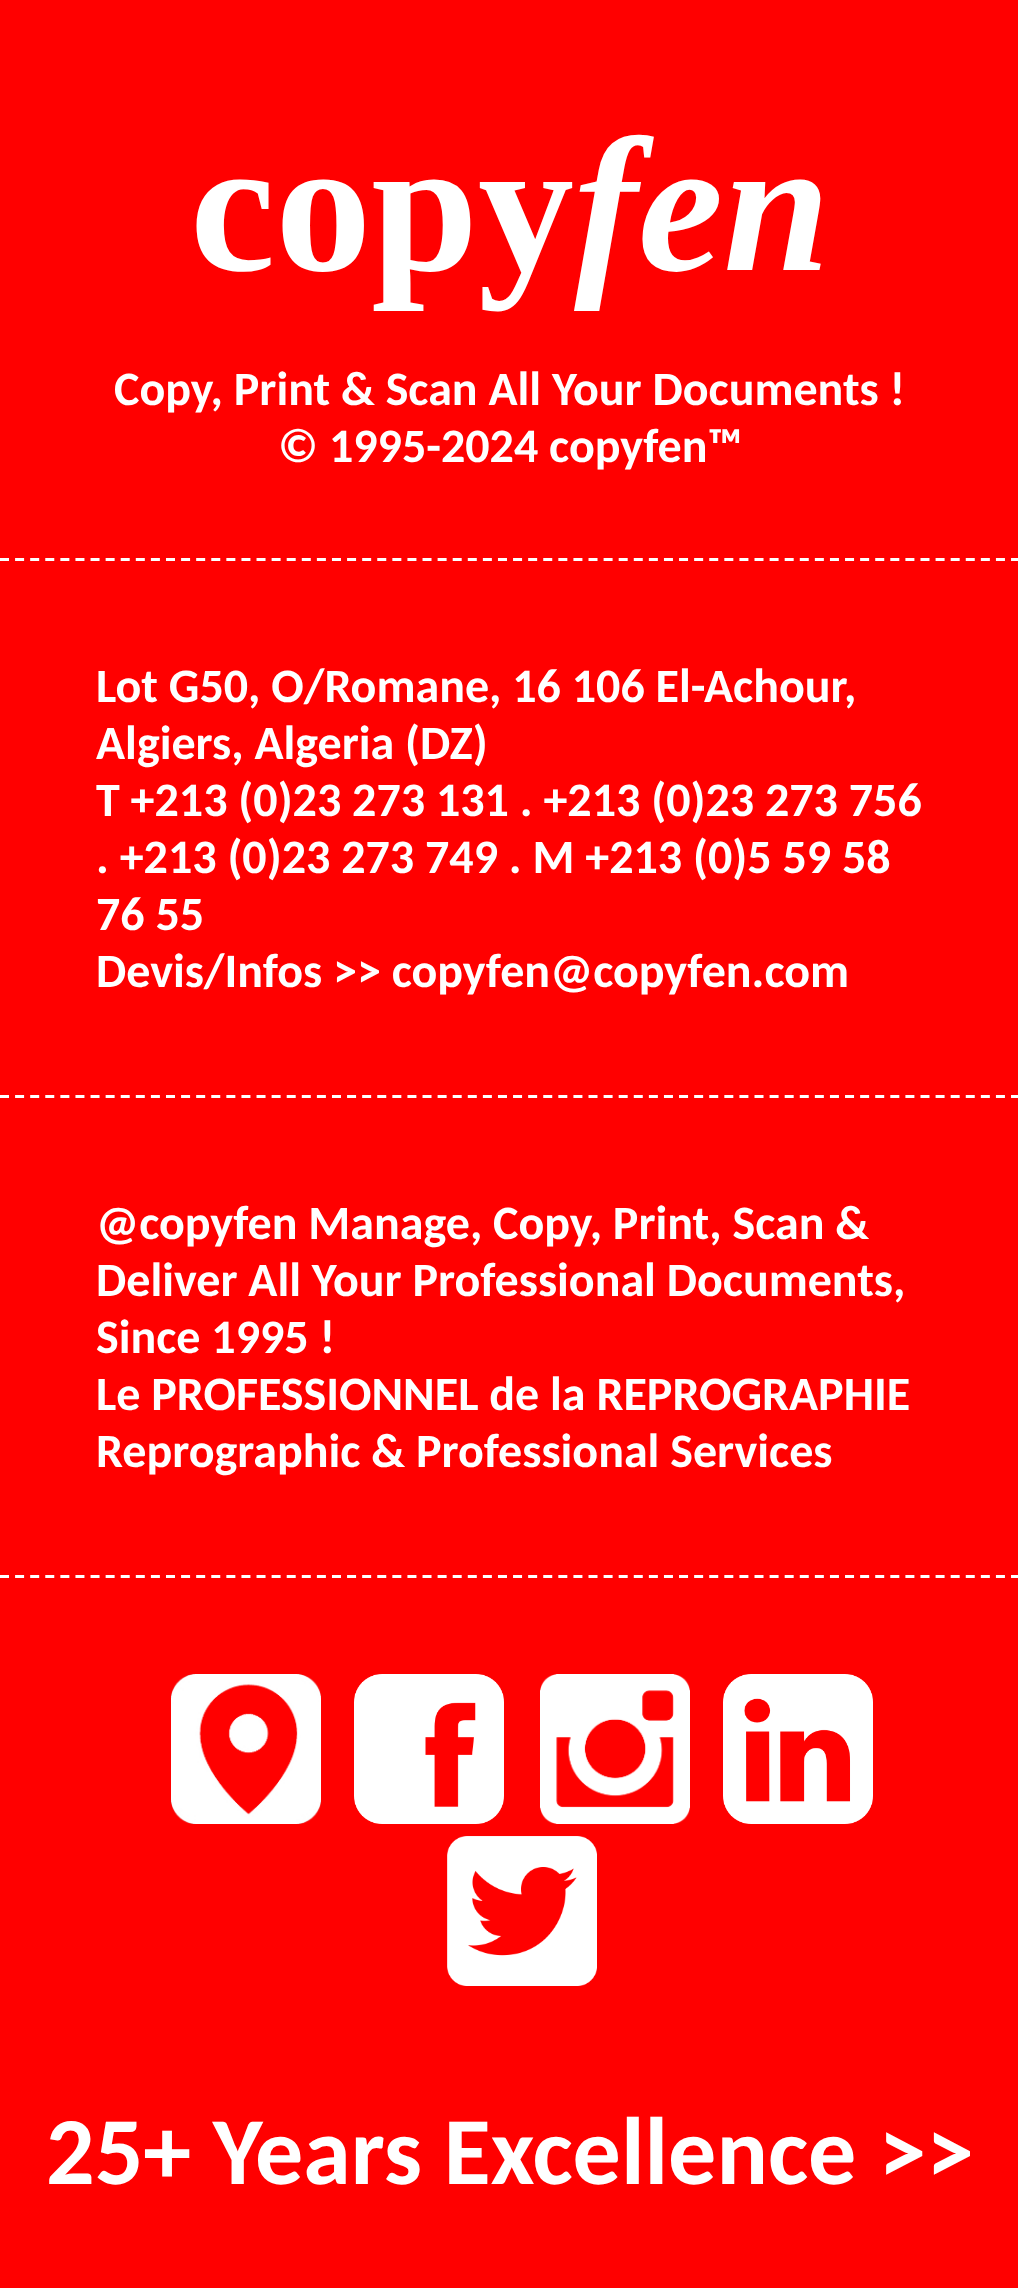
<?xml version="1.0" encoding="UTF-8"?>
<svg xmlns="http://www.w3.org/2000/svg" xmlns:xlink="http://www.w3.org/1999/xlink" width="1018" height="2288">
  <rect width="100%" height="100%" fill="#ff0000" />
  <path d="M 0 559.5 h 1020" fill="none" stroke="#ffffff" stroke-width="3" stroke-dasharray="9 6.09" />
  <path d="M 0 1576.5 h 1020" fill="none" stroke="#ffffff" stroke-width="3" stroke-dasharray="9 6.09" />
  <image x="171" y="1674" width="150" height="150" xlink:href="image1.png" />
  <image x="354" y="1674" width="150" height="150" xlink:href="image2.png" />
  <image x="540" y="1674" width="150" height="150" xlink:href="image3.png" />
  <image x="723" y="1674" width="150" height="150" xlink:href="image4.png" />
  <image x="447" y="1836" width="150" height="150" xlink:href="image5.png" />
  <path d="M 0 1096.5 h 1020" fill="none" stroke="#ffffff" stroke-width="3" stroke-dasharray="9 6.09" />
  <text x="190" y="270" style="font-family: Liberation Serif; font-size: 192px; font-weight: bold; fill: #ffffff">copy</text>
  <text x="574" y="270" style="font-family: Liberation Serif; font-size: 192px; font-weight: bold; font-style: italic; fill: #ffffff">fen</text>
  <text x="114" y="405" style="font-family: Carlito; font-size: 48px; font-weight: bold; fill: #ffffff">Copy, Print &amp; Scan All Your Documents !</text>
  <text x="278" y="462" style="font-family: Carlito; font-size: 48px; font-weight: bold; fill: #ffffff">© 1995-2024 copyfen™</text>
  <text x="96" y="1239" style="font-family: Carlito; font-size: 48px; font-weight: bold; fill: #ffffff">@copyfen Manage, Copy, Print, Scan &amp;</text>
  <text x="96" y="1296" style="font-family: Carlito; font-size: 48px; font-weight: bold; fill: #ffffff">Deliver All Your Professional Documents,</text>
  <text x="96" y="1353" style="font-family: Carlito; font-size: 48px; font-weight: bold; fill: #ffffff">Since 1995 !</text>
  <text x="96" y="1410" style="font-family: Carlito; font-size: 48px; font-weight: bold; fill: #ffffff">Le PROFESSIONNEL de la REPROGRAPHIE</text>
  <text x="96" y="1467" style="font-family: Carlito; font-size: 48px; font-weight: bold; fill: #ffffff">Reprographic &amp; Professional Services</text>
  <text x="46" y="2184" style="font-family: Carlito; font-size: 96px; font-weight: bold; fill: #ffffff">25+ Years Excellence &gt;&gt;</text>
  <text x="96" y="702" style="font-family: Carlito; font-size: 48px; font-weight: bold; fill: #ffffff">Lot G50, O/Romane, 16 106 El-Achour,</text>
  <text x="96" y="759" style="font-family: Carlito; font-size: 48px; font-weight: bold; fill: #ffffff">Algiers, Algeria (DZ)</text>
  <text x="96" y="816" style="font-family: Carlito; font-size: 48px; font-weight: bold; fill: #ffffff">T +213 (0)23 273 131 . +213 (0)23 273 756</text>
  <text x="96" y="873" style="font-family: Carlito; font-size: 48px; font-weight: bold; fill: #ffffff">. +213 (0)23 273 749 . M +213 (0)5 59 58</text>
  <text x="96" y="930" style="font-family: Carlito; font-size: 48px; font-weight: bold; fill: #ffffff">76 55</text>
  <text x="96" y="987" style="font-family: Carlito; font-size: 48px; font-weight: bold; fill: #ffffff">Devis/Infos &gt;&gt; copyfen@copyfen.com</text>
</svg>
